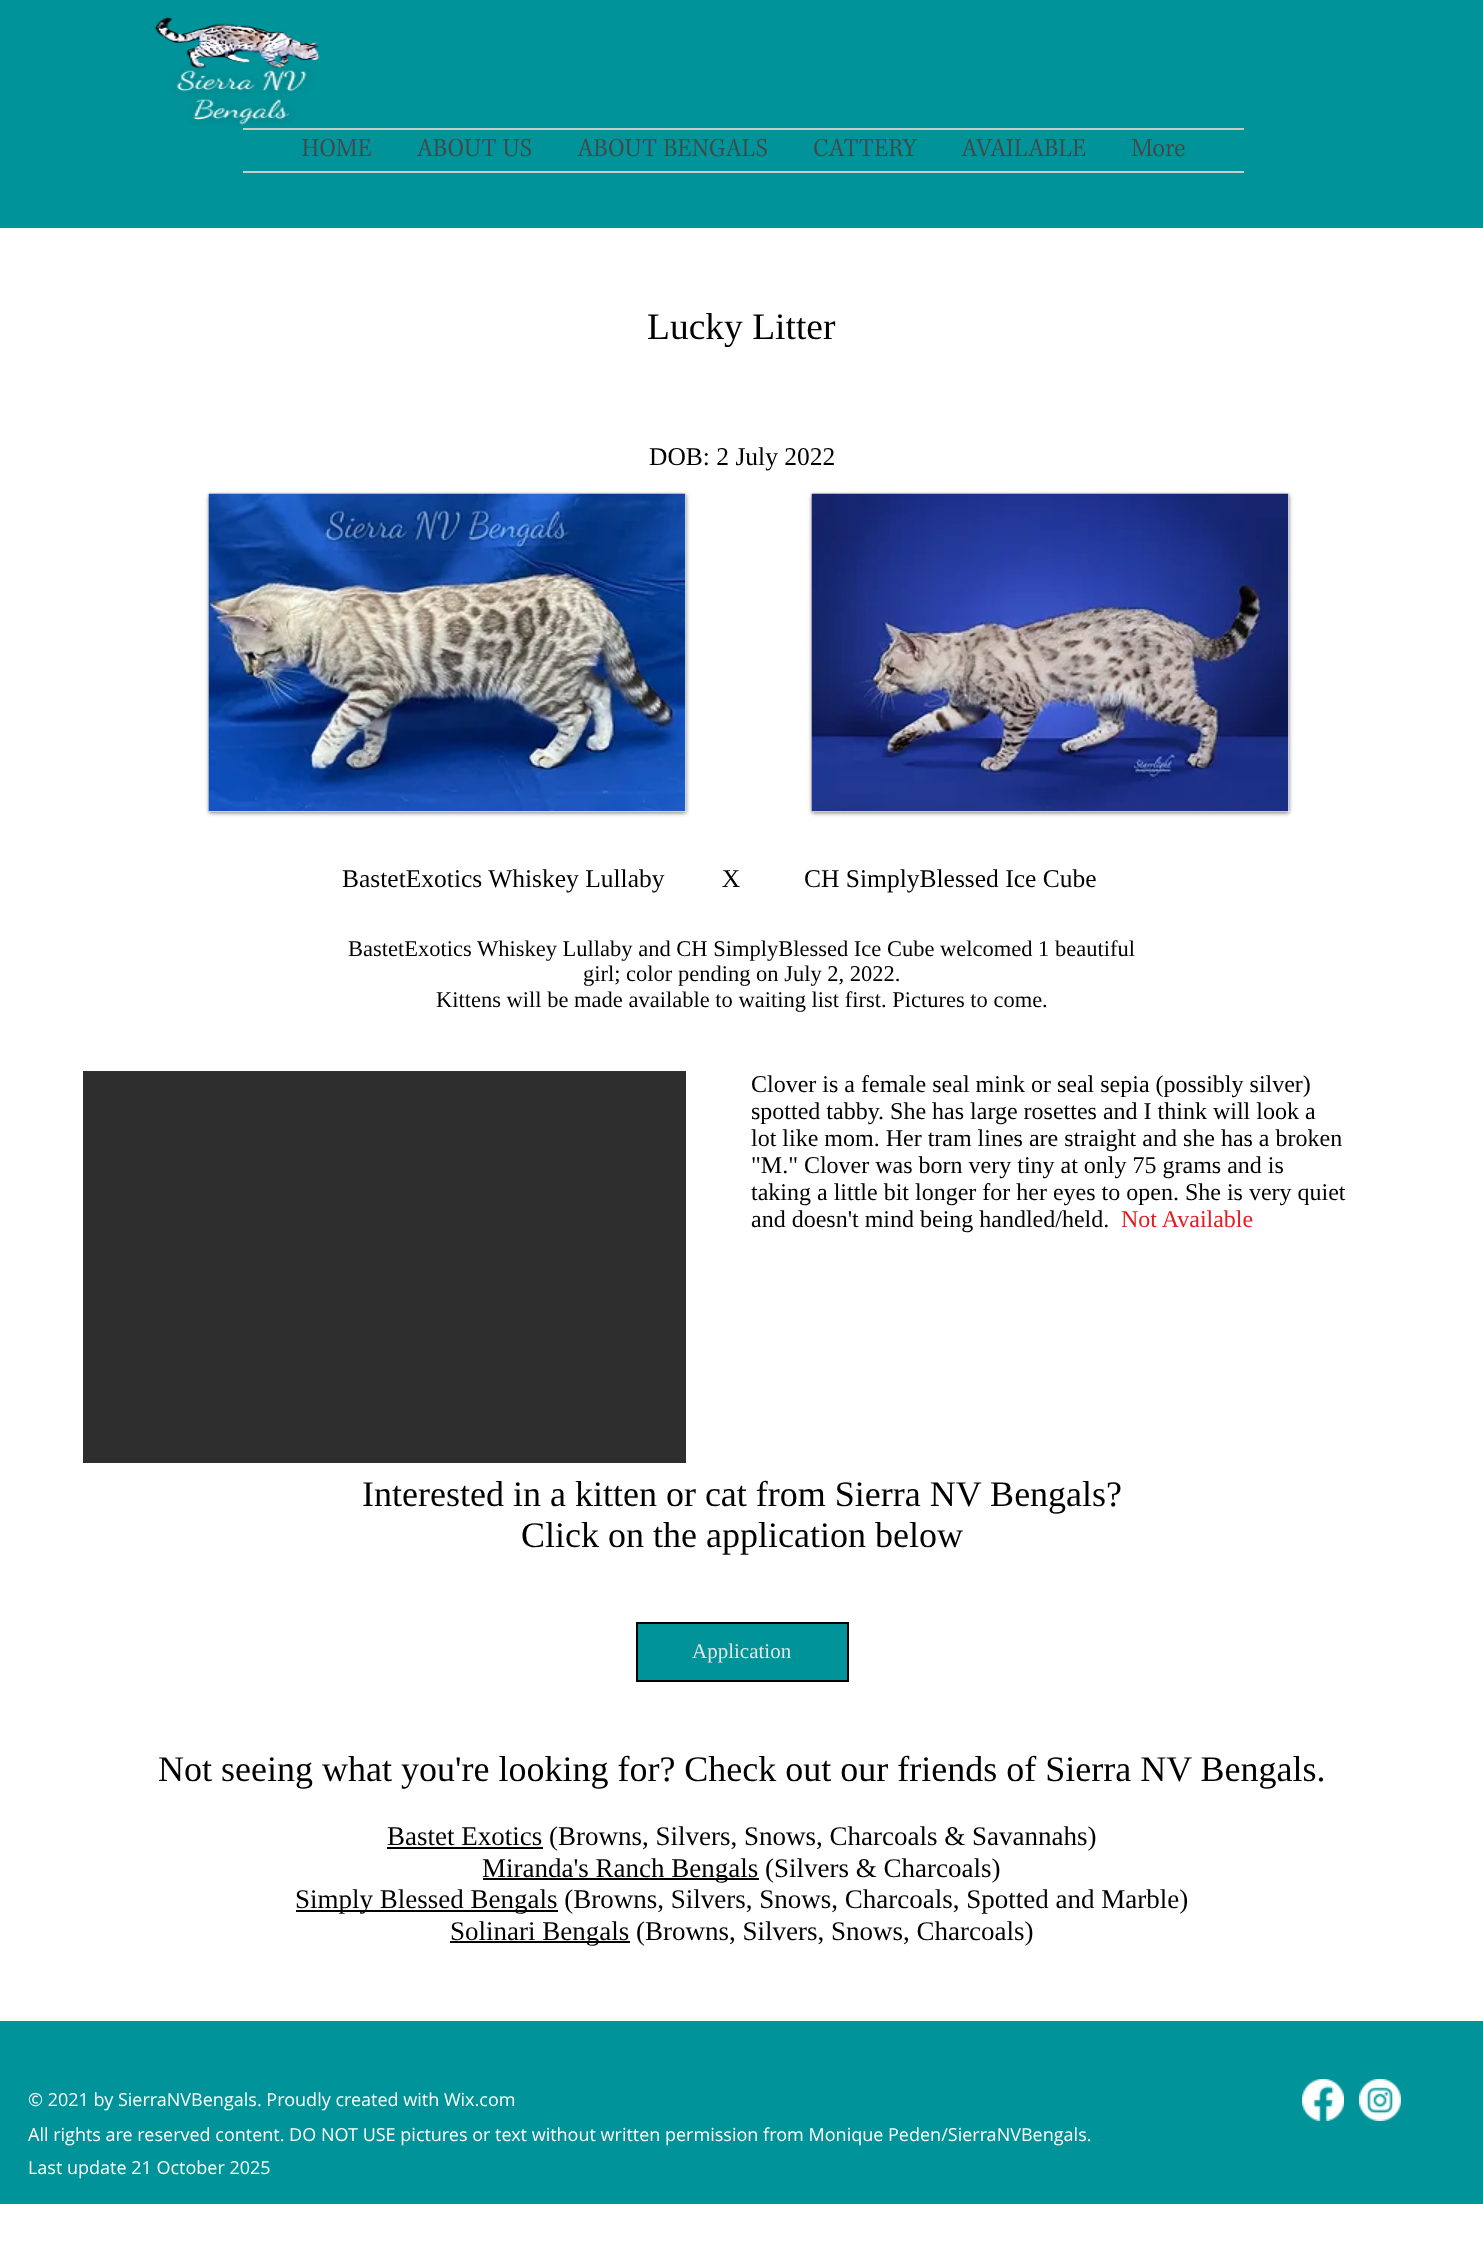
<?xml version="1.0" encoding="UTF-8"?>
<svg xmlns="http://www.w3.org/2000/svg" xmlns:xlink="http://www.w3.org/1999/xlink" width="1483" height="2248">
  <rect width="100%" height="100%" fill="#ffffff" />
  <rect width="1483" height="228" fill="#009399" />
  <image x="154" y="17" width="166" height="109" xlink:href="image1.png" />
  <rect x="243" y="128" width="1001" height="2" fill="#cacaca" />
  <rect x="243" y="171" width="1001" height="2" fill="#cacaca" />
  <image x="302" y="138" width="69" height="19" xlink:href="image2.png" />
  <image x="416" y="138" width="115" height="19" xlink:href="image3.png" />
  <image x="577" y="138" width="190" height="19" xlink:href="image4.png" />
  <image x="814" y="138" width="104" height="19" xlink:href="image5.png" />
  <image x="961" y="138" width="125" height="19" xlink:href="image6.png" />
  <image x="1131" y="139" width="54" height="18" xlink:href="image7.png" />
  <rect x="209" y="495" width="477" height="318" fill="#000000" fill-opacity="0.5" filter="blur(2px)" />
  <rect x="209" y="494" width="477" height="318" fill="#ffffff" />
  <image x="208" y="493" width="478" height="319" xlink:href="image8.png" />
  <rect x="812" y="495" width="477" height="318" fill="#000000" fill-opacity="0.5" filter="blur(2px)" />
  <rect x="812" y="494" width="477" height="318" fill="#ffffff" />
  <image x="811" y="493" width="478" height="319" xlink:href="image9.png" />
  <rect x="83" y="1071" width="603" height="392" fill="#2f2e2e" />
  <rect x="387" y="1847" width="156" height="2" fill="#000000" />
  <rect x="483" y="1878" width="276" height="2" fill="#000000" />
  <rect x="296" y="1910" width="262" height="2" fill="#000000" />
  <rect x="450" y="1941" width="180" height="2" fill="#000000" />
  <rect x="637" y="1623" width="211" height="58" fill="#009399" stroke="#000000" stroke-width="2" />
  <rect y="2021" width="1483" height="183" fill="#009399" />
  <image x="1302" y="2079" width="42" height="42" xlink:href="image10.png" />
  <image x="1359" y="2079" width="42" height="42" xlink:href="image11.png" />
  <text x="647" y="339" style="font-family: Liberation Serif; font-size: 37.5px; fill: #000000">Lucky Litter</text>
  <text x="649" y="465" style="font-family: Liberation Serif; font-size: 25.5px; fill: #000000">DOB: 2 July 2022</text>
  <text x="342" y="887" style="font-family: Liberation Serif; font-size: 25.5px; fill: #000000" xml:space="preserve">BastetExotics Whiskey Lullaby         X          CH SimplyBlessed Ice Cube</text>
  <text x="348" y="956" style="font-family: Liberation Serif; font-size: 22.5px; fill: #000000">BastetExotics Whiskey Lullaby and CH SimplyBlessed Ice Cube welcomed 1 beautiful</text>
  <text x="583" y="981" style="font-family: Liberation Serif; font-size: 22.5px; fill: #000000">girl; color pending on July 2, 2022.</text>
  <text x="436" y="1007" style="font-family: Liberation Serif; font-size: 22.5px; fill: #000000">Kittens will be made available to waiting list first. Pictures to come.</text>
  <text x="751" y="1092" style="font-family: Liberation Serif; font-size: 24px; fill: #000000">Clover is a female seal mink or seal sepia (possibly silver)</text>
  <text x="751" y="1119" style="font-family: Liberation Serif; font-size: 24px; fill: #000000">spotted tabby. She has large rosettes and I think will look a</text>
  <text x="751" y="1146" style="font-family: Liberation Serif; font-size: 24px; fill: #000000">lot like mom. Her tram lines are straight and she has a broken</text>
  <text x="751" y="1173" style="font-family: Liberation Serif; font-size: 24px; fill: #000000">"M." Clover was born very tiny at only 75 grams and is</text>
  <text x="751" y="1200" style="font-family: Liberation Serif; font-size: 24px; fill: #000000">taking a little bit longer for her eyes to open. She is very quiet</text>
  <text x="751" y="1227" style="font-family: Liberation Serif; font-size: 24px; fill: #000000">and doesn't mind being handled/held.</text>
  <text x="1121" y="1227" style="font-family: Liberation Serif; font-size: 24px; fill: #e21c21">Not Available</text>
  <text x="362" y="1506" style="font-family: Liberation Serif; font-size: 36px; fill: #000000">Interested in a kitten or cat from Sierra NV Bengals?</text>
  <text x="521" y="1547" style="font-family: Liberation Serif; font-size: 36px; fill: #000000">Click on the application below</text>
  <text x="158" y="1781" style="font-family: Liberation Serif; font-size: 36px; fill: #000000">Not seeing what you're looking for? Check out our friends of Sierra NV Bengals.</text>
  <text x="387" y="1845" style="font-family: Liberation Serif; font-size: 27px; fill: #000000">Bastet Exotics (Browns, Silvers, Snows, Charcoals &amp; Savannahs)</text>
  <text x="482" y="1877" style="font-family: Liberation Serif; font-size: 27px; fill: #000000">Miranda's Ranch Bengals (Silvers &amp; Charcoals)</text>
  <text x="295" y="1908" style="font-family: Liberation Serif; font-size: 27px; fill: #000000">Simply Blessed Bengals (Browns, Silvers, Snows, Charcoals, Spotted and Marble)</text>
  <text x="450" y="1940" style="font-family: Liberation Serif; font-size: 27px; fill: #000000">Solinari Bengals (Browns, Silvers, Snows, Charcoals)</text>
  <text x="692" y="1658" style="font-family: Liberation Serif; font-size: 21px; fill: #e5e5e5">Application</text>
  <text x="28" y="2106" style="font-family: Open Sans; font-size: 18px; fill: #ffffff">© 2021 by SierraNVBengals. Proudly created with Wix.com</text>
  <text x="28" y="2141" style="font-family: Open Sans; font-size: 18px; fill: #ffffff">All rights are reserved content. DO NOT USE pictures or text without written permission from Monique Peden/SierraNVBengals.</text>
  <text x="28" y="2174" style="font-family: Open Sans; font-size: 18px; fill: #ffffff">Last update 21 October 2025</text>
</svg>
